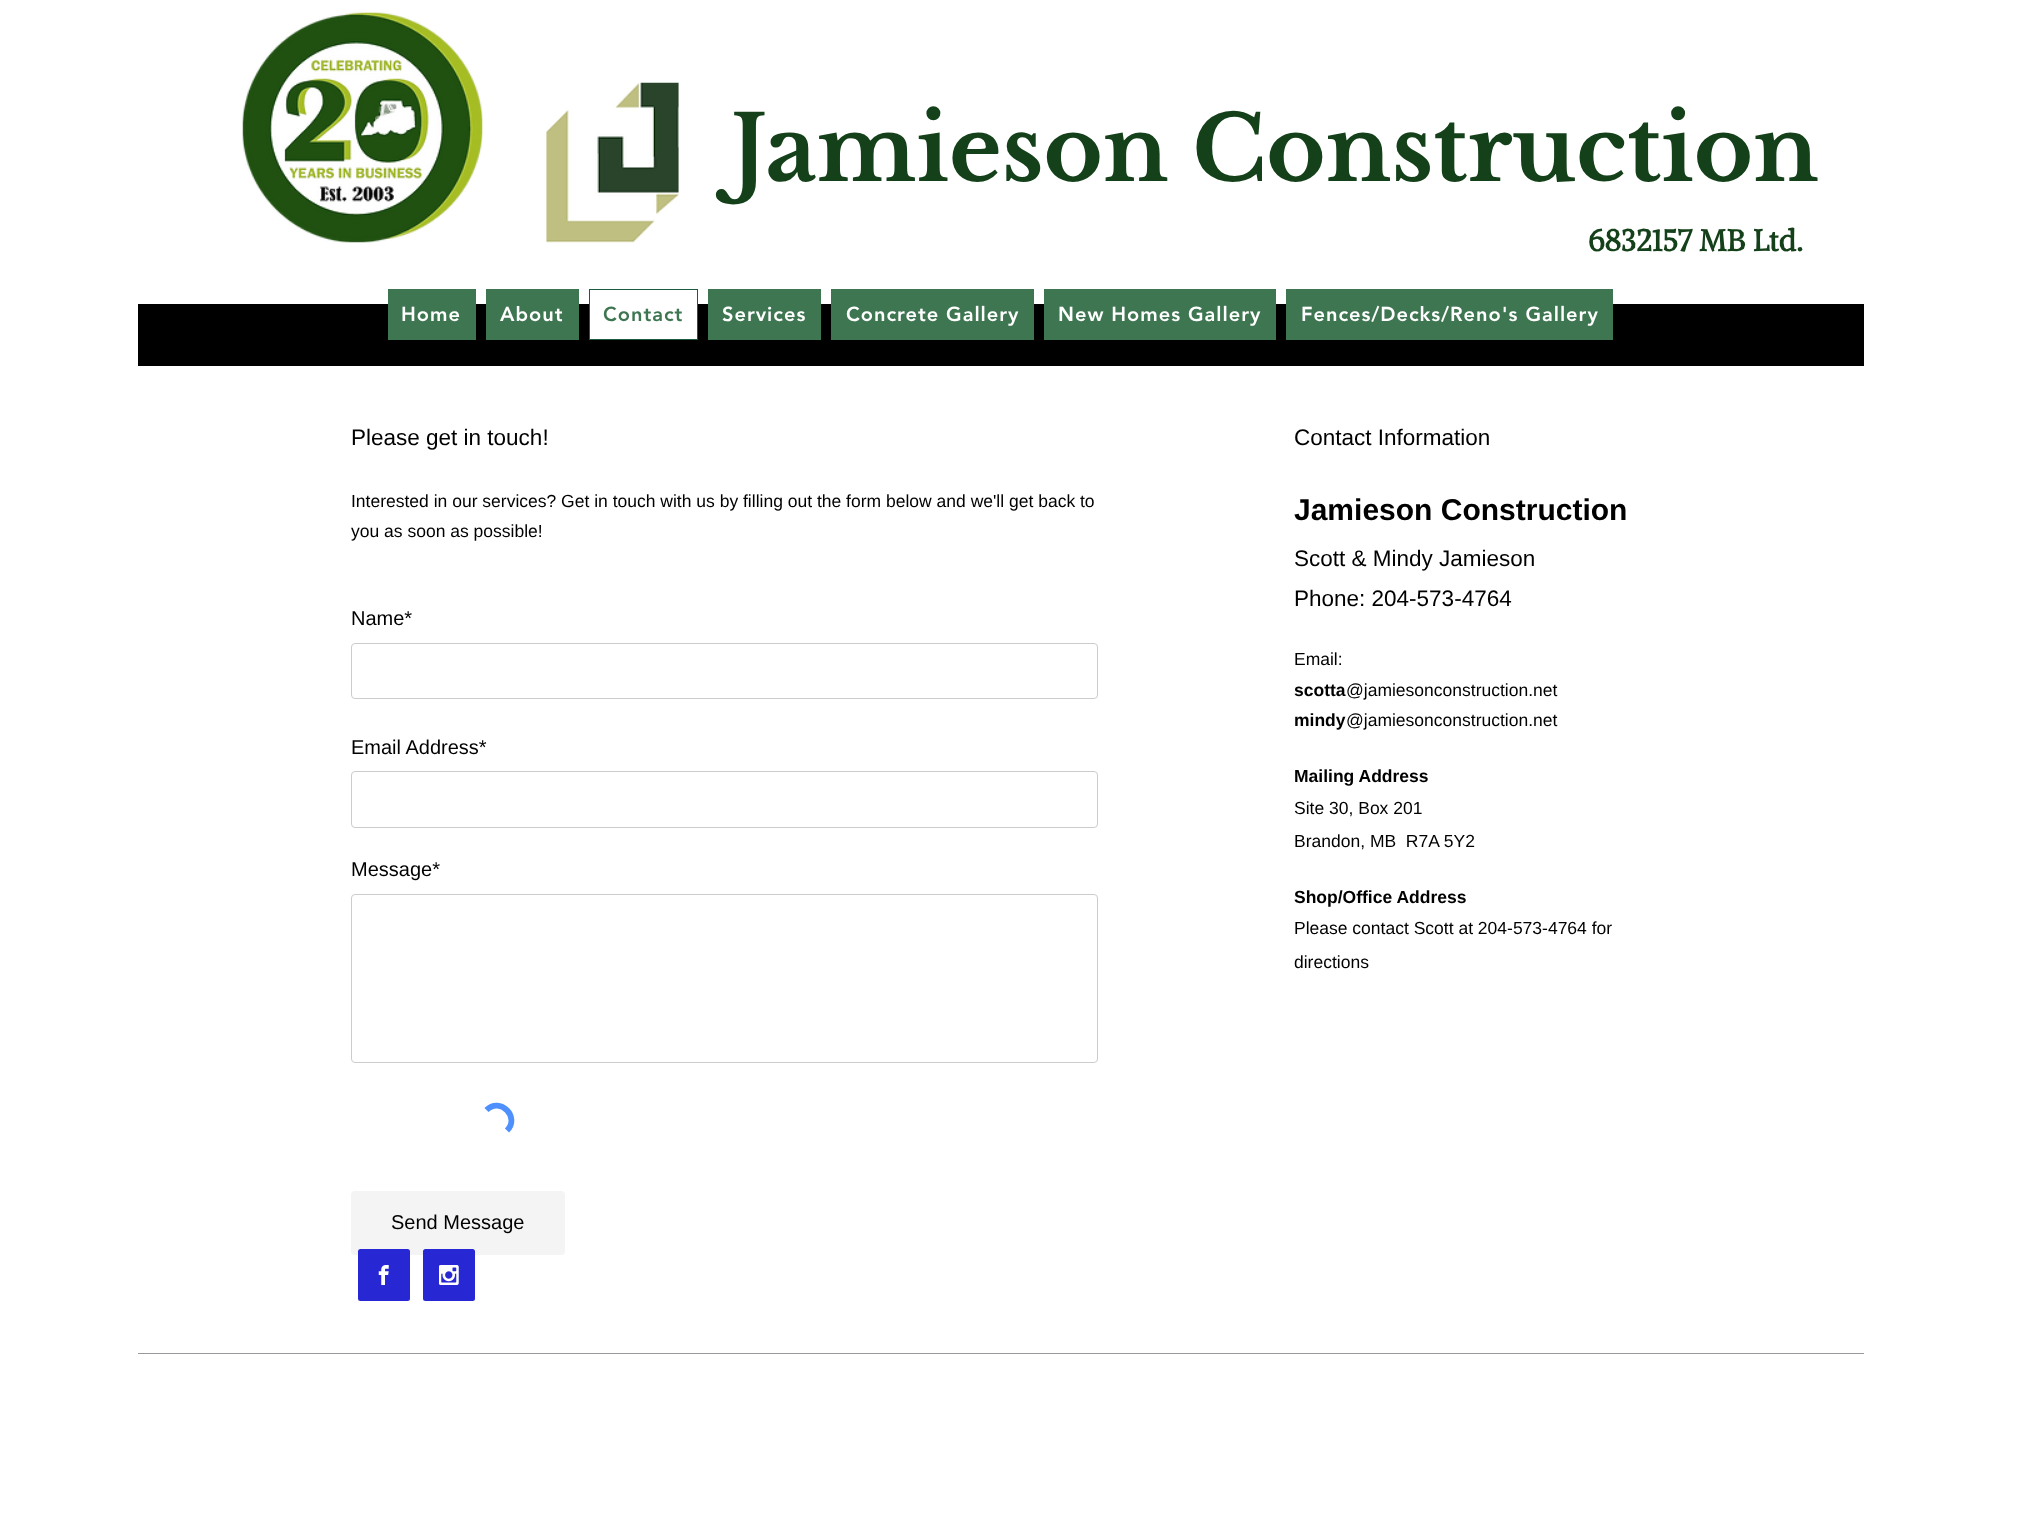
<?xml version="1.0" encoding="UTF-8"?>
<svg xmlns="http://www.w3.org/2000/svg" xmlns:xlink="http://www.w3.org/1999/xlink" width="2018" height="1539">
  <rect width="100%" height="100%" fill="#ffffff" />
  <image x="242" y="12" width="241" height="231" xlink:href="image1.png" />
  <image x="546" y="82" width="133" height="161" xlink:href="image2.png" />
  <rect x="138" y="304" width="1726" height="62" fill="#000000" />
  <rect x="388" y="289" width="88" height="51" fill="#3f7652" />
  <rect x="486" y="289" width="93" height="51" fill="#3f7652" />
  <rect x="590" y="304" width="107" height="35" fill="#ffffff" />
  <rect x="589.5" y="289.5" width="108" height="50" fill="none" stroke="#1b5b3f" />
  <rect x="708" y="289" width="113" height="51" fill="#3f7652" />
  <rect x="831" y="289" width="203" height="51" fill="#3f7652" />
  <rect x="1044" y="289" width="232" height="51" fill="#3f7652" />
  <rect x="1286" y="289" width="327" height="51" fill="#3f7652" />
  <rect x="351.5" y="643.5" width="746" height="55" rx="3.5" fill="none" stroke="#cccccc" />
  <rect x="351.5" y="771.5" width="746" height="56" rx="3.5" fill="none" stroke="#cccccc" />
  <rect x="351.5" y="894.5" width="746" height="168" rx="3.5" fill="none" stroke="#cccccc" />
  <path d="M 486.5 1110 c 13.5 -13.5 34 7 20.5 20.5" fill="none" stroke="#4d90fe" stroke-width="5.8" />
  <rect x="351" y="1191" width="214" height="64" rx="4" fill="#f4f4f4" />
  <rect x="358" y="1249" width="52" height="52" rx="2.5" fill="#2727d3" />
  <image x="378" y="1265" width="11" height="20" xlink:href="image3.png" />
  <rect x="423" y="1249" width="52" height="52" rx="2.5" fill="#2727d3" />
  <image x="439" y="1265" width="20" height="20" xlink:href="image4.png" />
  <rect x="138" y="1353" width="1726" height="1" fill="#99989e" />
  <text x="731" y="181" style="font-family: Libre Baskerville; font-size: 90px; font-weight: bold; fill: #15411a">Jamieson Construction</text>
  <text x="1588" y="251" style="font-family: Alike Angular; font-size: 30px; font-weight: bold; fill: #15411a">6832157 MB Ltd.</text>
  <text x="401" y="321" style="font-family: 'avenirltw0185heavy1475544'; font-size: 20px; font-weight: 900; letter-spacing: 1px; fill: #ffffff">Home</text>
  <text x="500" y="321" style="font-family: 'avenirltw0185heavy1475544'; font-size: 20px; font-weight: 900; letter-spacing: 1px; fill: #ffffff">About</text>
  <text x="603" y="321" style="font-family: 'avenirltw0185heavy1475544'; font-size: 20px; font-weight: 900; letter-spacing: 1px; fill: #3f7652">Contact</text>
  <text x="722" y="321" style="font-family: 'avenirltw0185heavy1475544'; font-size: 20px; font-weight: 900; letter-spacing: 1px; fill: #ffffff">Services</text>
  <text x="846" y="321" style="font-family: 'avenirltw0185heavy1475544'; font-size: 20px; font-weight: 900; letter-spacing: 1px; fill: #ffffff">Concrete Gallery</text>
  <text x="1058" y="321" style="font-family: 'avenirltw0185heavy1475544'; font-size: 20px; font-weight: 900; letter-spacing: 1px; fill: #ffffff">New Homes Gallery</text>
  <text x="1301" y="321" style="font-family: 'avenirltw0185heavy1475544'; font-size: 20px; font-weight: 900; letter-spacing: 1px; fill: #ffffff">Fences/Decks/Reno's Gallery</text>
  <text x="351" y="445" style="font-family: Liberation Sans; font-size: 22.5px; fill: #000000">Please get in touch!</text>
  <text x="351" y="507" style="font-family: Liberation Sans; font-size: 17.5px; fill: #000000">Interested in our services? Get in touch with us by filling out the form below and we'll get back to</text>
  <text x="351" y="537" style="font-family: Liberation Sans; font-size: 17.5px; fill: #000000">you as soon as possible!</text>
  <text x="351" y="625" style="font-family: Liberation Sans; font-size: 20px; fill: #000000">Name*</text>
  <text x="351" y="754" style="font-family: Liberation Sans; font-size: 20px; fill: #000000">Email Address*</text>
  <text x="351" y="876" style="font-family: Liberation Sans; font-size: 20px; fill: #000000">Message*</text>
  <text x="391" y="1229" style="font-family: Liberation Sans; font-size: 20px; fill: #000000">Send Message</text>
  <text x="1294" y="445" style="font-family: Liberation Sans; font-size: 22.5px; fill: #000000">Contact Information</text>
  <text x="1294" y="520" style="font-family: Liberation Sans; font-size: 30px; font-weight: bold; fill: #000000">Jamieson Construction</text>
  <text x="1294" y="566" style="font-family: Liberation Sans; font-size: 22.5px; fill: #000000">Scott &amp; Mindy Jamieson</text>
  <text x="1294" y="606" style="font-family: Liberation Sans; font-size: 22.5px; fill: #000000">Phone: 204-573-4764</text>
  <text x="1294" y="665" style="font-family: Liberation Sans; font-size: 17.5px; fill: #000000">Email:</text>
  <text x="1294" y="696" style="font-family: Liberation Sans; font-size: 17.5px; font-weight: bold; fill: #000000">scotta</text>
  <text x="1346" y="696" style="font-family: Liberation Sans; font-size: 17.5px; fill: #000000">@jamiesonconstruction.net</text>
  <text x="1294" y="726" style="font-family: Liberation Sans; font-size: 17.5px; font-weight: bold; fill: #000000">mindy</text>
  <text x="1346" y="726" style="font-family: Liberation Sans; font-size: 17.5px; fill: #000000">@jamiesonconstruction.net</text>
  <text x="1294" y="782" style="font-family: Liberation Sans; font-size: 17.5px; font-weight: bold; fill: #000000">Mailing Address</text>
  <text x="1294" y="814" style="font-family: Liberation Sans; font-size: 17.5px; fill: #000000">Site 30, Box 201</text>
  <text x="1294" y="847" style="font-family: Liberation Sans; font-size: 17.5px; fill: #000000" xml:space="preserve">Brandon, MB  R7A 5Y2</text>
  <text x="1294" y="903" style="font-family: Liberation Sans; font-size: 17.5px; font-weight: bold; fill: #000000">Shop/Office Address</text>
  <text x="1294" y="934" style="font-family: Liberation Sans; font-size: 17.5px; fill: #000000">Please contact Scott at 204-573-4764 for</text>
  <text x="1294" y="968" style="font-family: Liberation Sans; font-size: 17.5px; fill: #000000">directions</text>
</svg>
